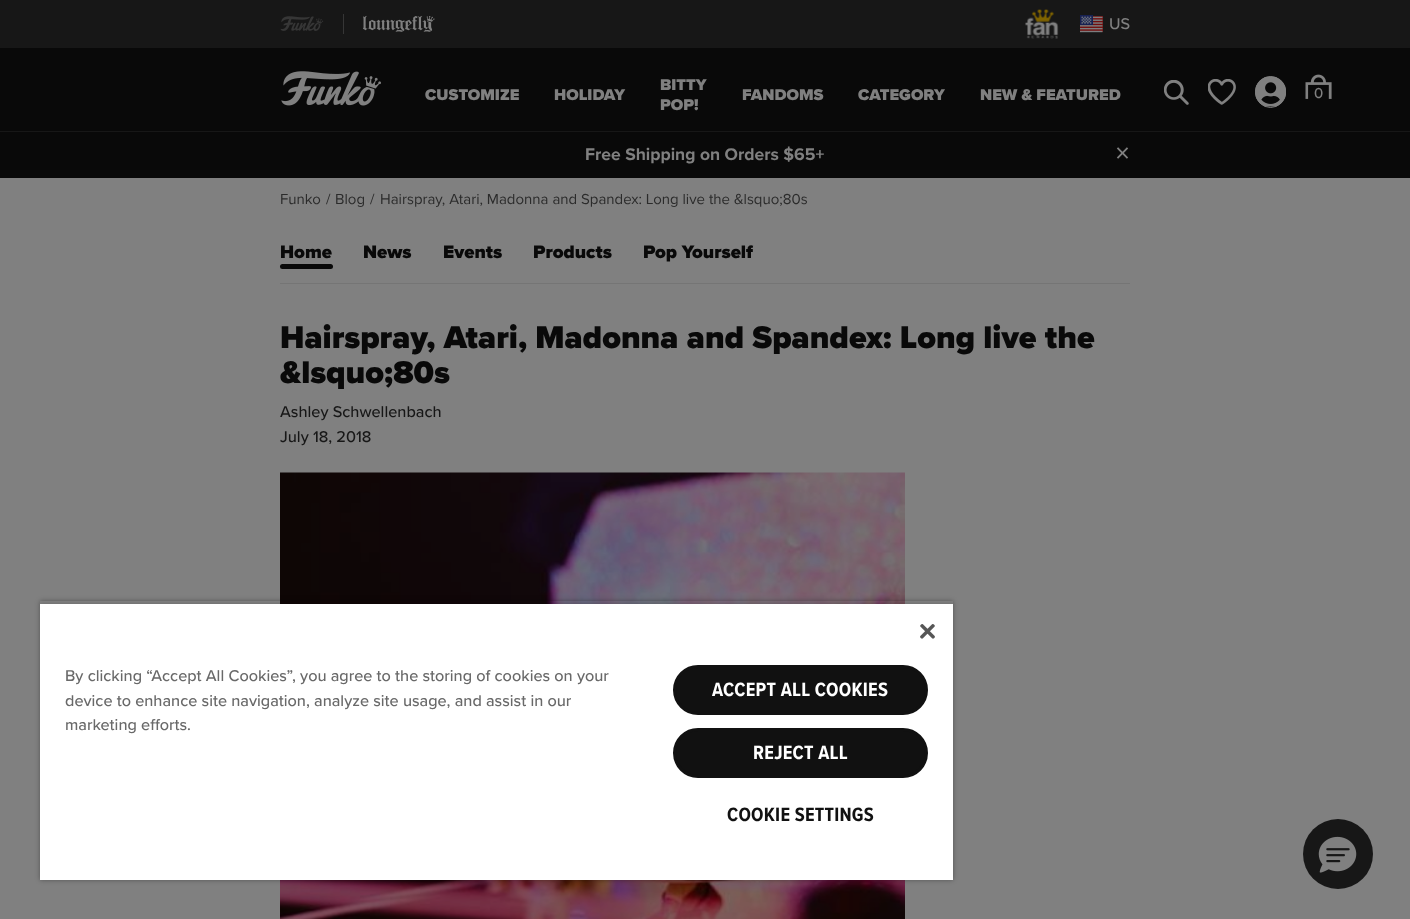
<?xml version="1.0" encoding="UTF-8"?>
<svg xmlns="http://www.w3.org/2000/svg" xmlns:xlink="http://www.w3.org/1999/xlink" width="1410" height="919">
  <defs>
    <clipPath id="clip1"><path d="M 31 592 h 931 v 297 h -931 z m 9 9 h 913 v 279 h -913 z" clip-rule="evenodd" /></clipPath>
    <clipPath id="clip2"><rect x="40" y="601" width="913" height="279" /></clipPath>
  </defs>
  <rect width="100%" height="100%" fill="#808080" />
  <rect y="48" width="1410" height="130" fill="#090909" />
  <rect width="1410" height="48" fill="#171717" />
  <image x="280" y="16" width="44" height="15" xlink:href="image1.png" />
  <rect x="343" y="14" width="1" height="20" fill="#363636" />
  <image x="363" y="15" width="72" height="17" xlink:href="image2.png" />
  <image x="1025" y="9" width="34" height="30" xlink:href="image3.png" />
  <image x="1080" y="15" width="23" height="18" xlink:href="image4.png" />
  <image x="281" y="71" width="100" height="35" xlink:href="image5.png" />
  <image x="1164" y="80" width="25" height="25" xlink:href="image6.png" />
  <image x="1208" y="79" width="28" height="26" xlink:href="image7.png" />
  <image x="1255" y="76" width="31" height="31" xlink:href="image8.png" />
  <rect x="1255.5" y="76.5" width="30" height="31" rx="15" fill="none" stroke="#808080" />
  <image x="1305" y="74" width="27" height="25" xlink:href="image9.png" />
  <rect y="131" width="1410" height="1" fill="#171717" />
  <rect x="280" y="283" width="850" height="1" fill="#757575" />
  <rect x="280" y="264" width="53" height="5" rx="2.5" fill="#090909" />
  <image x="280" y="472" width="625" height="447" xlink:href="image10.png" />
  <g clip-path="url(#clip1)">
    <rect x="40" y="601" width="913" height="279" fill="#000000" fill-opacity="0.35" filter="blur(2.5px)" />
  </g>
  <g clip-path="url(#clip2)">
    <rect x="40" y="604" width="913" height="276" fill="#000000" fill-opacity="0.2" filter="blur(2.5px)" />
  </g>
  <rect x="40" y="604" width="913" height="276" fill="#ffffff" />
  <image x="920" y="624" width="15" height="15" xlink:href="image11.png" />
  <rect x="674.5" y="666.5" width="252" height="47" rx="23.5" fill="#111111" stroke="#111111" stroke-width="3" />
  <rect x="674.5" y="729.5" width="252" height="47" rx="23.5" fill="#111111" stroke="#111111" stroke-width="3" />
  <circle cx="1338" cy="854" r="35" fill="#171717" />
  <image x="1318" y="836" width="39" height="37" xlink:href="image12.png" />
  <text x="1109" y="29" style="font-family: Proxima Nova; font-size: 16.25px; font-weight: 500; fill: #808080">US</text>
  <text x="425" y="100" style="font-family: Proxima Nova; font-size: 16.25px; font-weight: 900; fill: #808080">CUSTOMIZE</text>
  <text x="554" y="100" style="font-family: Proxima Nova; font-size: 16.25px; font-weight: 900; fill: #808080">HOLIDAY</text>
  <text x="660" y="90" style="font-family: Proxima Nova; font-size: 16.25px; font-weight: 900; fill: #808080">BITTY</text>
  <text x="660" y="110" style="font-family: Proxima Nova; font-size: 16.25px; font-weight: 900; fill: #808080">POP!</text>
  <text x="742" y="100" style="font-family: Proxima Nova; font-size: 16.25px; font-weight: 900; fill: #808080">FANDOMS</text>
  <text x="858" y="100" style="font-family: Proxima Nova; font-size: 16.25px; font-weight: 900; fill: #808080">CATEGORY</text>
  <text x="980" y="100" style="font-family: Proxima Nova; font-size: 16.25px; font-weight: 900; fill: #808080">NEW &amp; FEATURED</text>
  <text x="1314" y="98" style="font-family: Proxima Nova; font-size: 15px; font-weight: 500; fill: #808080">0</text>
  <text x="585" y="160" style="font-family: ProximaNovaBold; font-size: 17.5px; font-weight: bold; fill: #808080">Free Shipping on Orders $65+</text>
  <text x="1115" y="163" style="font-family: Proxima Nova; font-size: 30px; font-weight: 500; fill: #808080">×</text>
  <text x="280" y="204" style="font-family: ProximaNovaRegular; font-size: 15px; fill: #2b2b2b">Funko</text>
  <text x="326" y="204" style="font-family: ProximaNovaRegular; font-size: 15px; fill: #2b2b2b">/</text>
  <text x="335" y="204" style="font-family: ProximaNovaRegular; font-size: 15px; fill: #2b2b2b">Blog</text>
  <text x="370" y="204" style="font-family: ProximaNovaRegular; font-size: 15px; fill: #2b2b2b">/</text>
  <text x="380" y="204" style="font-family: ProximaNovaRegular; font-size: 15px; fill: #2b2b2b">Hairspray, Atari, Madonna and Spandex: Long live the &amp;lsquo;80s</text>
  <text x="280" y="258" style="font-family: Proxima Nova; font-size: 18.75px; font-weight: 900; fill: #090909">Home</text>
  <text x="363" y="258" style="font-family: Proxima Nova; font-size: 18.75px; font-weight: 900; fill: #090909">News</text>
  <text x="443" y="258" style="font-family: Proxima Nova; font-size: 18.75px; font-weight: 900; fill: #090909">Events</text>
  <text x="533" y="258" style="font-family: Proxima Nova; font-size: 18.75px; font-weight: 900; fill: #090909">Products</text>
  <text x="643" y="258" style="font-family: Proxima Nova; font-size: 18.75px; font-weight: 900; fill: #090909">Pop Yourself</text>
  <text x="280" y="348" style="font-family: Proxima Nova; font-size: 32.5px; font-weight: 900; fill: #090909">Hairspray, Atari, Madonna and Spandex: Long live the</text>
  <text x="280" y="383" style="font-family: Proxima Nova; font-size: 32.5px; font-weight: 900; fill: #090909">&amp;lsquo;80s</text>
  <text x="280" y="417" style="font-family: Proxima Nova; font-size: 16.25px; font-weight: 500; fill: #171717">Ashley Schwellenbach</text>
  <text x="280" y="442" style="font-family: Proxima Nova; font-size: 16.25px; font-weight: 500; fill: #171717">July 18, 2018</text>
  <text x="65" y="681" style="font-family: Proxima Nova; font-size: 16.25px; font-weight: 500; fill: #696969">By clicking “Accept All Cookies”, you agree to the storing of cookies on your</text>
  <text x="65" y="706" style="font-family: Proxima Nova; font-size: 16.25px; font-weight: 500; fill: #696969">device to enhance site navigation, analyze site usage, and assist in our</text>
  <text x="65" y="730" style="font-family: Proxima Nova; font-size: 16.25px; font-weight: 500; fill: #696969">marketing efforts.</text>
  <text x="712" y="696" style="font-family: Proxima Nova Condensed; font-size: 20px; font-weight: bold; letter-spacing: 0.25px; fill: #ffffff">ACCEPT ALL COOKIES</text>
  <text x="753" y="759" style="font-family: Proxima Nova Condensed; font-size: 20px; font-weight: bold; letter-spacing: 0.25px; fill: #ffffff">REJECT ALL</text>
  <text x="727" y="821" style="font-family: Proxima Nova Condensed; font-size: 20px; font-weight: bold; letter-spacing: 0.25px; fill: #111111">COOKIE SETTINGS</text>
</svg>
